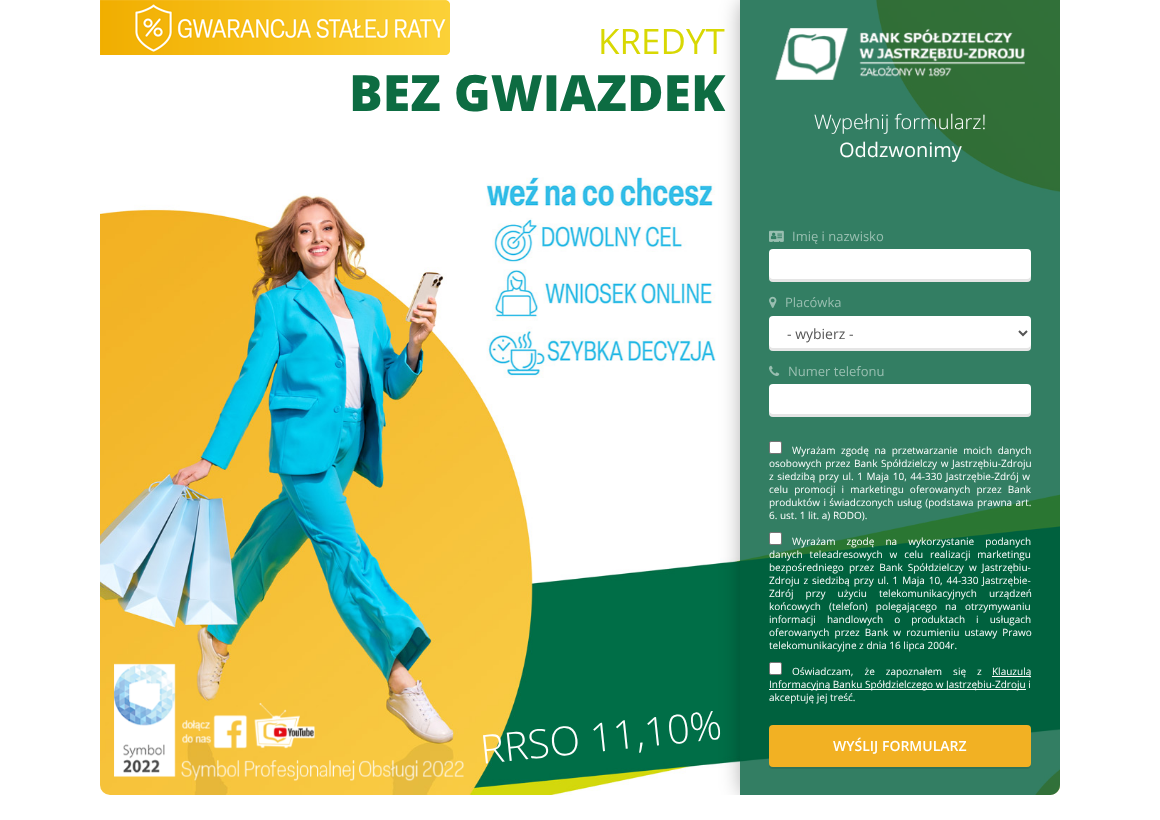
<?xml version="1.0" encoding="UTF-8"?>
<svg xmlns="http://www.w3.org/2000/svg" xmlns:xlink="http://www.w3.org/1999/xlink" width="1160" height="820">
  <defs>
    <clipPath id="clip1"><path d="M 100 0 h 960 v 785 c 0 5.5 -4.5 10 -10 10 h -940 c -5.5 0 -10 -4.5 -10 -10 z" /></clipPath>
    <clipPath id="clip2"><path d="M 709 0 h 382 v 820 h -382 z m 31 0 h 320 v 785 c 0 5.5 -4.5 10 -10 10 h -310 z" clip-rule="evenodd" /></clipPath>
  </defs>
  <rect width="100%" height="100%" fill="#ffffff" />
  <image x="100" y="0" width="960" height="795" xlink:href="image1.png" />
  <image x="100" y="0" width="350" height="55" xlink:href="image2.png" />
  <image x="486" y="177" width="230" height="201" xlink:href="image3.png" />
  <image x="114" y="663" width="350" height="118" xlink:href="image4.png" />
  <g clip-path="url(#clip1)">
    <g clip-path="url(#clip2)">
      <rect x="740" width="320" height="795" rx="10" fill="#000000" fill-opacity="0.3" filter="blur(10px)" />
    </g>
  </g>
  <path d="M 740 0 h 320 v 785 c 0 5.5 -4.5 10 -10 10 h -310 z" fill="#005e3c" fill-opacity="0.8" />
  <image x="775" y="28" width="250" height="52" xlink:href="image5.png" />
  <image x="769" y="230" width="15" height="12" xlink:href="image6.png" />
  <rect x="769" y="249" width="262" height="33" rx="4" fill="#ffffff" />
  <path d="M 769 275 c 0 3 0 7 4 7 h 254 c 4 0 4 -4 4 -7 c 0 2 -2 4 -4 4 h -254 c -2 0 -4 -2 -4 -4 z" fill="#000000" fill-opacity="0.1" />
  <image x="769" y="296" width="8" height="12" xlink:href="image7.png" />
  <rect x="769" y="316" width="262" height="35" rx="4" fill="#ffffff" />
  <path d="M 769 344 c 0 3 0 7 4 7 h 254 c 4 0 4 -4 4 -7 c 0 2 -2 4 -4 4 h -254 c -2 0 -4 -2 -4 -4 z" fill="#000000" fill-opacity="0.1" />
  <path d="M 1019 331 l 4 4 l 4 -4" fill="none" stroke="#555555" stroke-width="2" />
  <image x="769" y="365" width="11" height="11" xlink:href="image8.png" />
  <rect x="769" y="384" width="262" height="33" rx="4" fill="#ffffff" />
  <path d="M 769 410 c 0 3 0 7 4 7 h 254 c 4 0 4 -4 4 -7 c 0 2 -2 4 -4 4 h -254 c -2 0 -4 -2 -4 -4 z" fill="#000000" fill-opacity="0.1" />
  <rect x="769.5" y="441.5" width="12" height="12" rx="1.5" fill="#ffffff" stroke="#767676" />
  <rect x="769.5" y="532.5" width="12" height="12" rx="1.5" fill="#ffffff" stroke="#767676" />
  <rect x="769.5" y="662.5" width="12" height="12" rx="1.5" fill="#ffffff" stroke="#767676" />
  <rect x="992" y="676" width="39" height="1" fill="#ffffff" />
  <rect x="769" y="689" width="257" height="1" fill="#ffffff" />
  <path d="M 769 763 c 0 3 0 6 4 6 h 255 c 3 -1 3 -3 3 -6 c 0 2 -2 4 -4 4 h -254 c -2 0 -4 -2 -4 -4 z" fill="#2e7259" />
  <rect x="769" y="725" width="262" height="42" rx="4" fill="#f2b123" />
  <text x="598" y="54" style="font-family: Open Sans; font-size: 35px; fill: #d8d803">KREDYT</text>
  <text x="349" y="111" style="font-family: Open Sans; font-size: 50px; font-weight: 800; fill: #0d6c42">BEZ GWIAZDEK</text>
  <text x="482" y="764" transform="rotate(-6 482 764)" style="font-family: Open Sans; font-size: 40px; font-weight: 300; fill: #ffffff">RRSO 11,10%</text>
  <text x="814" y="129" style="font-family: Open Sans; font-size: 20px; font-weight: 300; fill: #ffffff">Wypełnij formularz!</text>
  <text x="839" y="157" style="font-family: Open Sans; font-size: 20px; fill: #ffffff">Oddzwonimy</text>
  <text x="792" y="241" style="font-family: Open Sans; font-size: 13px; fill: #99bfb1">Imię i nazwisko</text>
  <text x="785" y="307" style="font-family: Open Sans; font-size: 13px; fill: #99bfb1">Placówka</text>
  <text x="787" y="339" style="font-family: Open Sans; font-size: 14px; fill: #555555">- wybierz -</text>
  <text x="788" y="376" style="font-family: Open Sans; font-size: 13px; fill: #99bfb1">Numer telefonu</text>
  <text x="792" y="454" word-spacing="3" style="font-family: Open Sans; font-size: 10px; fill: #ffffff">Wyrażam zgodę na przetwarzanie moich danych</text>
  <text x="769" y="467" word-spacing="1" style="font-family: Open Sans; font-size: 10px; fill: #ffffff">osobowych przez Bank Spółdzielczy w Jastrzębiu-Zdroju</text>
  <text x="769" y="480" word-spacing="1" style="font-family: Open Sans; font-size: 10px; fill: #ffffff">z siedzibą przy ul. 1 Maja 10, 44-330 Jastrzębie-Zdrój w</text>
  <text x="769" y="493" word-spacing="3.5" style="font-family: Open Sans; font-size: 10px; fill: #ffffff">celu promocji i marketingu oferowanych przez Bank</text>
  <text x="769" y="506" word-spacing="0.75" style="font-family: Open Sans; font-size: 10px; fill: #ffffff">produktów i świadczonych usług (podstawa prawna art.</text>
  <text x="769" y="519" style="font-family: Open Sans; font-size: 10px; fill: #ffffff">6. ust. 1 lit. a) RODO).</text>
  <text x="792" y="545" word-spacing="8.5" style="font-family: Open Sans; font-size: 10px; fill: #ffffff">Wyrażam zgodę na wykorzystanie podanych</text>
  <text x="769" y="558" word-spacing="4.25" style="font-family: Open Sans; font-size: 10px; fill: #ffffff">danych teleadresowych w celu realizacji marketingu</text>
  <text x="769" y="571" word-spacing="2.5" style="font-family: Open Sans; font-size: 10px; fill: #ffffff">bezpośredniego przez Bank Spółdzielczy w Jastrzębiu-</text>
  <text x="769" y="584" word-spacing="1.25" style="font-family: Open Sans; font-size: 10px; fill: #ffffff">Zdroju z siedzibą przy ul. 1 Maja 10, 44-330 Jastrzębie-</text>
  <text x="769" y="597" word-spacing="9.5" style="font-family: Open Sans; font-size: 10px; fill: #ffffff">Zdrój przy użyciu telekomunikacyjnych urządzeń</text>
  <text x="769" y="610" word-spacing="5.5" style="font-family: Open Sans; font-size: 10px; fill: #ffffff">końcowych (telefon) polegającego na otrzymywaniu</text>
  <text x="769" y="623" word-spacing="8.5" style="font-family: Open Sans; font-size: 10px; fill: #ffffff">informacji handlowych o produktach i usługach</text>
  <text x="769" y="636" word-spacing="2.5" style="font-family: Open Sans; font-size: 10px; fill: #ffffff">oferowanych przez Bank w rozumieniu ustawy Prawo</text>
  <text x="769" y="649" style="font-family: Open Sans; font-size: 10px; fill: #ffffff">telekomunikacyjne z dnia 16 lipca 2004r.</text>
  <text x="792" y="675" word-spacing="8.5" style="font-family: Open Sans; font-size: 10px; fill: #ffffff">Oświadczam, że zapoznałem się z</text>
  <text x="992" y="675" style="font-family: Open Sans; font-size: 10px; fill: #ffffff">Klauzulą</text>
  <text x="769" y="688" style="font-family: Open Sans; font-size: 10px; fill: #ffffff">Informacyjną Banku Spółdzielczego w Jastrzębiu-Zdroju i</text>
  <text x="769" y="701" style="font-family: Open Sans; font-size: 10px; fill: #ffffff">akceptuję jej treść.</text>
  <text x="833" y="751" style="font-family: Open Sans; font-size: 14px; font-weight: 600; fill: #ffffff">WYŚLIJ FORMULARZ</text>
</svg>
